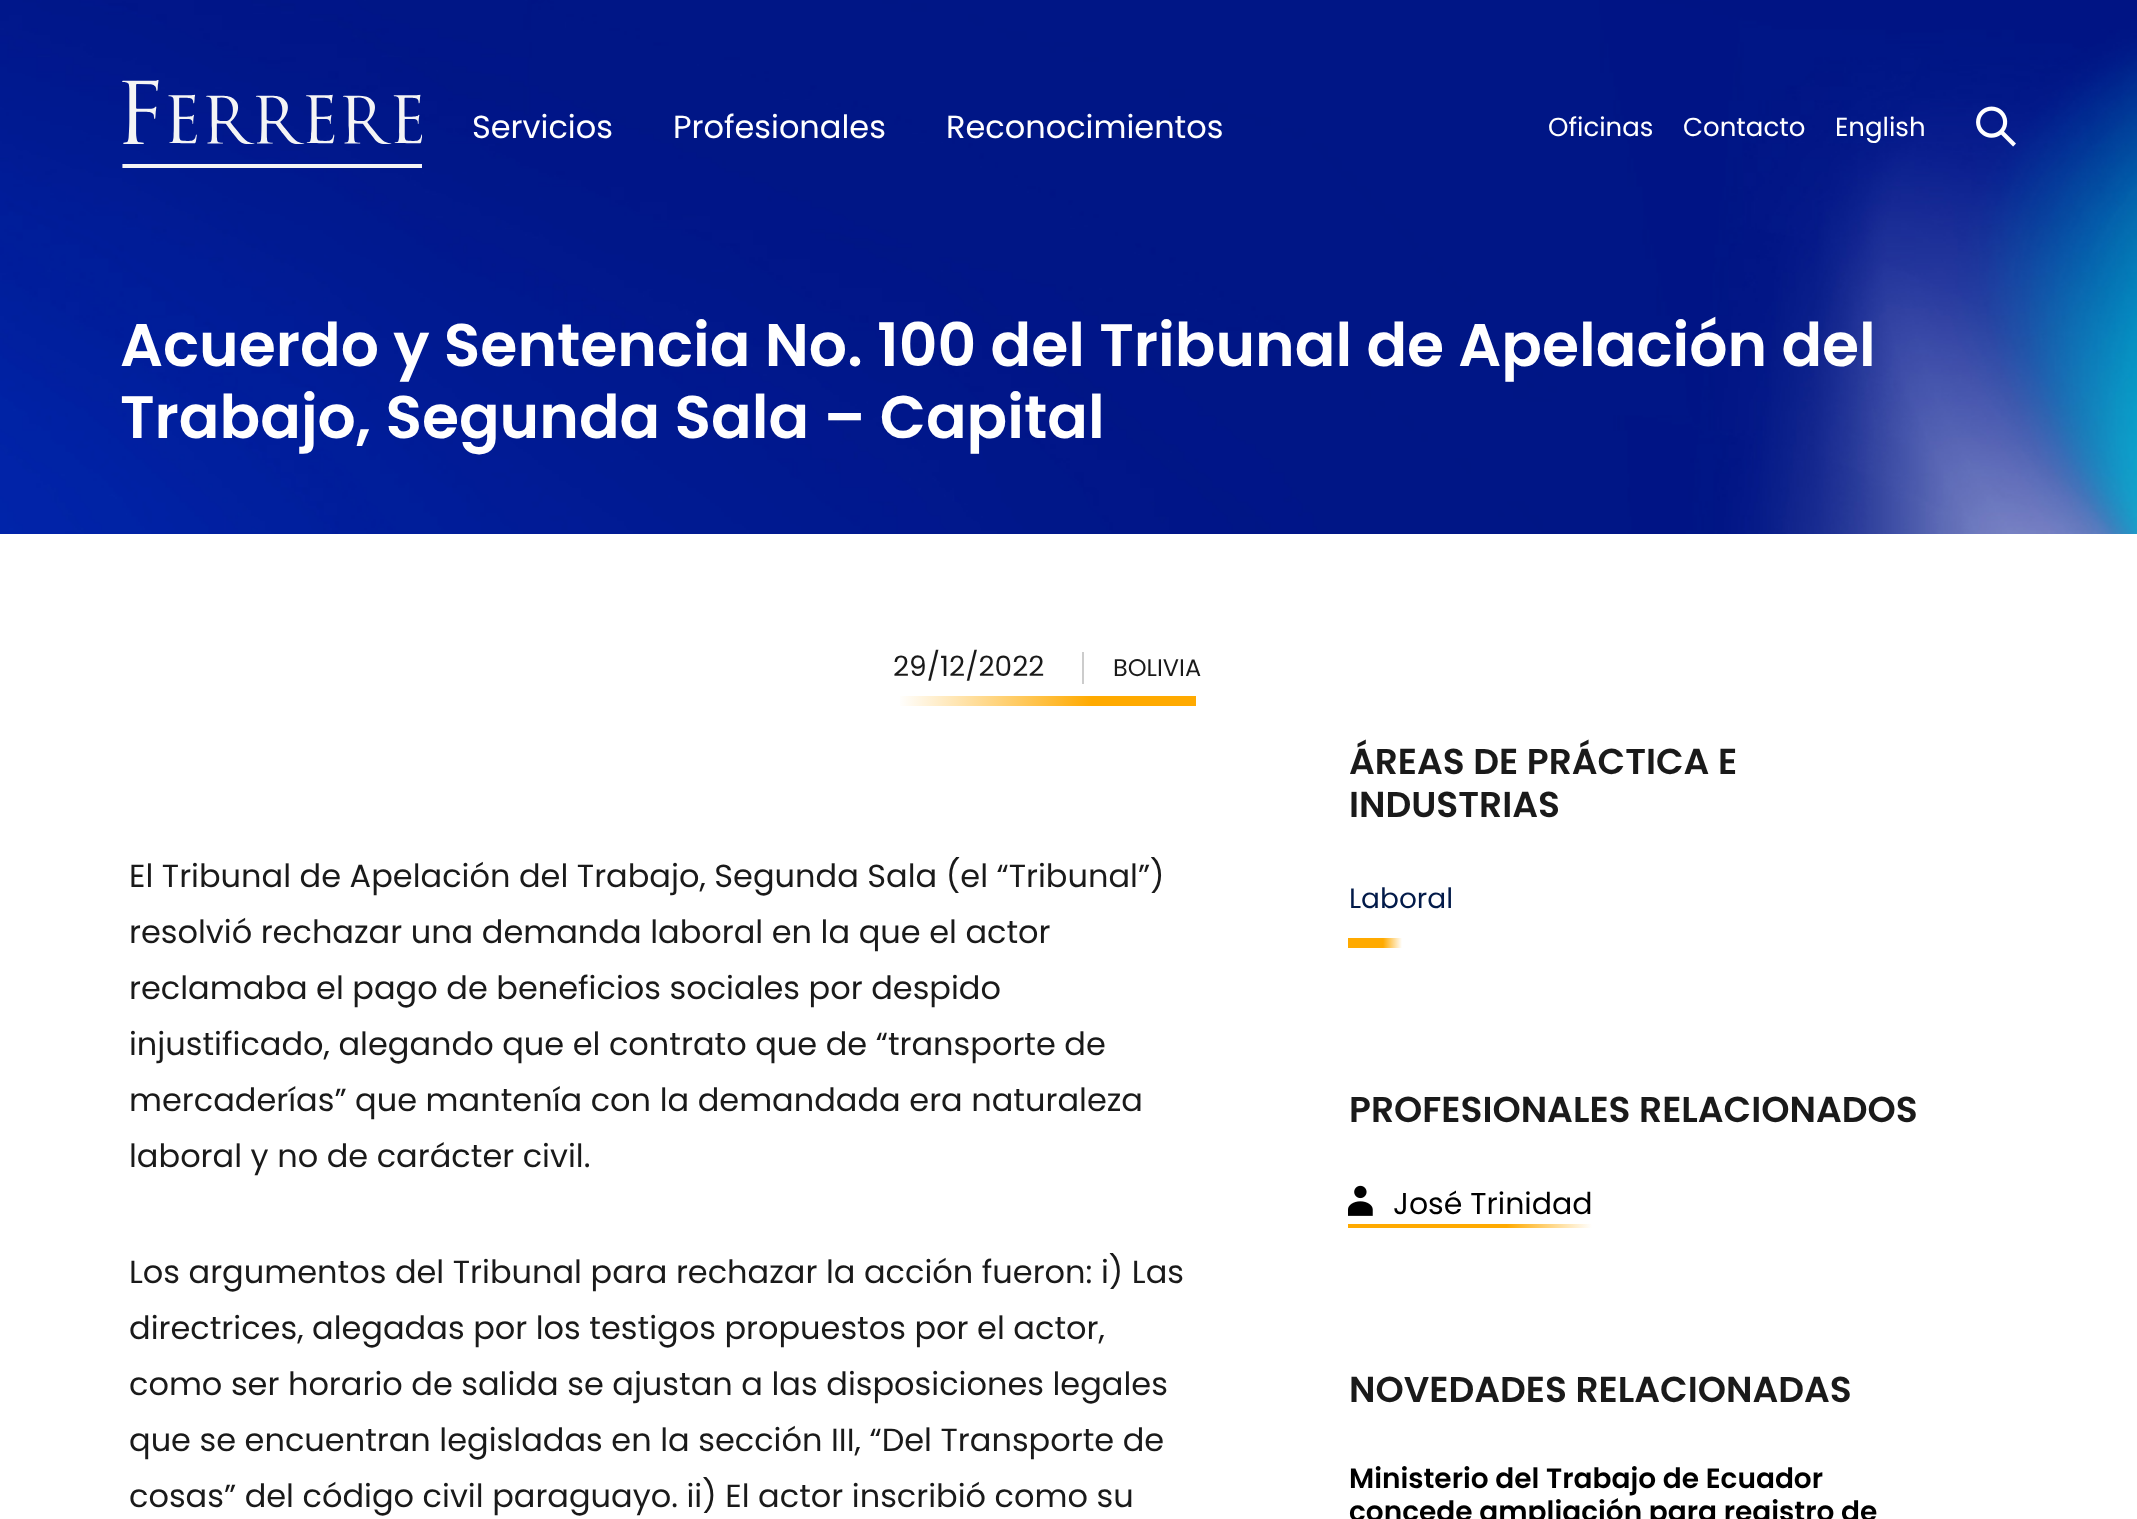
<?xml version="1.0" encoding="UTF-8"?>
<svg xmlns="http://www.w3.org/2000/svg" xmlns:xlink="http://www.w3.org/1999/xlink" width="2137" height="1519">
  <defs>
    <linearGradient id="g1" gradientUnits="userSpaceOnUse" x1="1196" y1="701" x2="898" y2="701"><stop offset="0.35" stop-color="#ffaa00" /><stop offset="1" stop-color="#ffffff" /></linearGradient>
    <linearGradient id="g2" gradientUnits="userSpaceOnUse" x1="1348" y1="943" x2="1402" y2="943"><stop offset="0.65" stop-color="#ffaa00" /><stop offset="1" stop-color="#ffffff" /></linearGradient>
    <linearGradient id="g3" gradientUnits="userSpaceOnUse" x1="1348" y1="1226" x2="1592" y2="1226"><stop offset="0.65" stop-color="#ffaa00" /><stop offset="1" stop-color="#ffffff" /></linearGradient>
  </defs>
  <rect width="100%" height="100%" fill="#ffffff" />
  <image x="0" y="0" width="2137" height="534" xlink:href="image3.png" />
  <image x="122" y="80" width="300" height="88" xlink:href="image1.png" />
  <image x="1976" y="106" width="40" height="41" xlink:href="image2.png" />
  <rect x="1082" y="652" width="2" height="32" fill="#cccccc" />
  <rect x="900" y="696" width="296" height="10" fill="url(#g1)" />
  <rect x="1348" y="938" width="54" height="10" fill="url(#g2)" />
  <image x="1348" y="1185" width="25" height="31" xlink:href="image4.png" />
  <rect x="1348" y="1224" width="244" height="4" fill="url(#g3)" />
  <text x="472" y="138" style="font-family: Poppins; font-size: 32px; fill: #ffffff">Servicios</text>
  <text x="673" y="138" style="font-family: Poppins; font-size: 32px; fill: #ffffff">Profesionales</text>
  <text x="946" y="138" style="font-family: Poppins; font-size: 32px; fill: #ffffff">Reconocimientos</text>
  <text x="1548" y="136" style="font-family: Poppins; font-size: 26px; fill: #ffffff">Oficinas</text>
  <text x="1683" y="136" style="font-family: Poppins; font-size: 26px; fill: #ffffff">Contacto</text>
  <text x="1835" y="136" style="font-family: Poppins; font-size: 26px; fill: #ffffff">English</text>
  <text x="120" y="366" style="font-family: Poppins; font-size: 60px; font-weight: 600; fill: #ffffff">Acuerdo y Sentencia No. 100 del Tribunal de Apelación del</text>
  <text x="120" y="438" style="font-family: Poppins; font-size: 60px; font-weight: 600; fill: #ffffff">Trabajo, Segunda Sala – Capital</text>
  <text x="893" y="676" style="font-family: Poppins; font-size: 28px; fill: #1a1a1a">29/12/2022</text>
  <text x="1113" y="676" style="font-family: Poppins; font-size: 24px; fill: #1a1a1a">BOLIVIA</text>
  <text x="129" y="887" style="font-family: Poppins; font-size: 32px; fill: #1a1a1a">El Tribunal de Apelación del Trabajo, Segunda Sala (el “Tribunal”)</text>
  <text x="129" y="943" style="font-family: Poppins; font-size: 32px; fill: #1a1a1a">resolvió rechazar una demanda laboral en la que el actor</text>
  <text x="129" y="999" style="font-family: Poppins; font-size: 32px; fill: #1a1a1a">reclamaba el pago de beneficios sociales por despido</text>
  <text x="129" y="1055" style="font-family: Poppins; font-size: 32px; fill: #1a1a1a">injustificado, alegando que el contrato que de “transporte de</text>
  <text x="129" y="1111" style="font-family: Poppins; font-size: 32px; fill: #1a1a1a">mercaderías” que mantenía con la demandada era naturaleza</text>
  <text x="129" y="1167" style="font-family: Poppins; font-size: 32px; fill: #1a1a1a">laboral y no de carácter civil.</text>
  <text x="129" y="1283" style="font-family: Poppins; font-size: 32px; fill: #1a1a1a">Los argumentos del Tribunal para rechazar la acción fueron: i) Las</text>
  <text x="129" y="1339" style="font-family: Poppins; font-size: 32px; fill: #1a1a1a">directrices, alegadas por los testigos propuestos por el actor,</text>
  <text x="129" y="1395" style="font-family: Poppins; font-size: 32px; fill: #1a1a1a">como ser horario de salida se ajustan a las disposiciones legales</text>
  <text x="129" y="1451" style="font-family: Poppins; font-size: 32px; fill: #1a1a1a">que se encuentran legisladas en la sección III, “Del Transporte de</text>
  <text x="129" y="1507" style="font-family: Poppins; font-size: 32px; fill: #1a1a1a">cosas” del código civil paraguayo. ii) El actor inscribió como su</text>
  <text x="1349" y="774" style="font-family: Poppins; font-size: 36px; font-weight: 600; fill: #1a1a1a">ÁREAS DE PRÁCTICA E</text>
  <text x="1349" y="817" style="font-family: Poppins; font-size: 36px; font-weight: 600; fill: #1a1a1a">INDUSTRIAS</text>
  <text x="1349" y="908" style="font-family: Poppins; font-size: 28px; fill: #021a49">Laboral</text>
  <text x="1349" y="1122" style="font-family: Poppins; font-size: 36px; font-weight: 600; fill: #1a1a1a">PROFESIONALES RELACIONADOS</text>
  <text x="1393" y="1214" style="font-family: Poppins; font-size: 30px; fill: #000000">José Trinidad</text>
  <text x="1349" y="1402" style="font-family: Poppins; font-size: 36px; font-weight: 600; fill: #1a1a1a">NOVEDADES RELACIONADAS</text>
  <text x="1349" y="1488" style="font-family: Poppins; font-size: 28px; font-weight: 600; fill: #000000">Ministerio del Trabajo de Ecuador</text>
  <text x="1349" y="1521" style="font-family: Poppins; font-size: 28px; font-weight: 600; fill: #000000">concede ampliación para registro de</text>
</svg>
